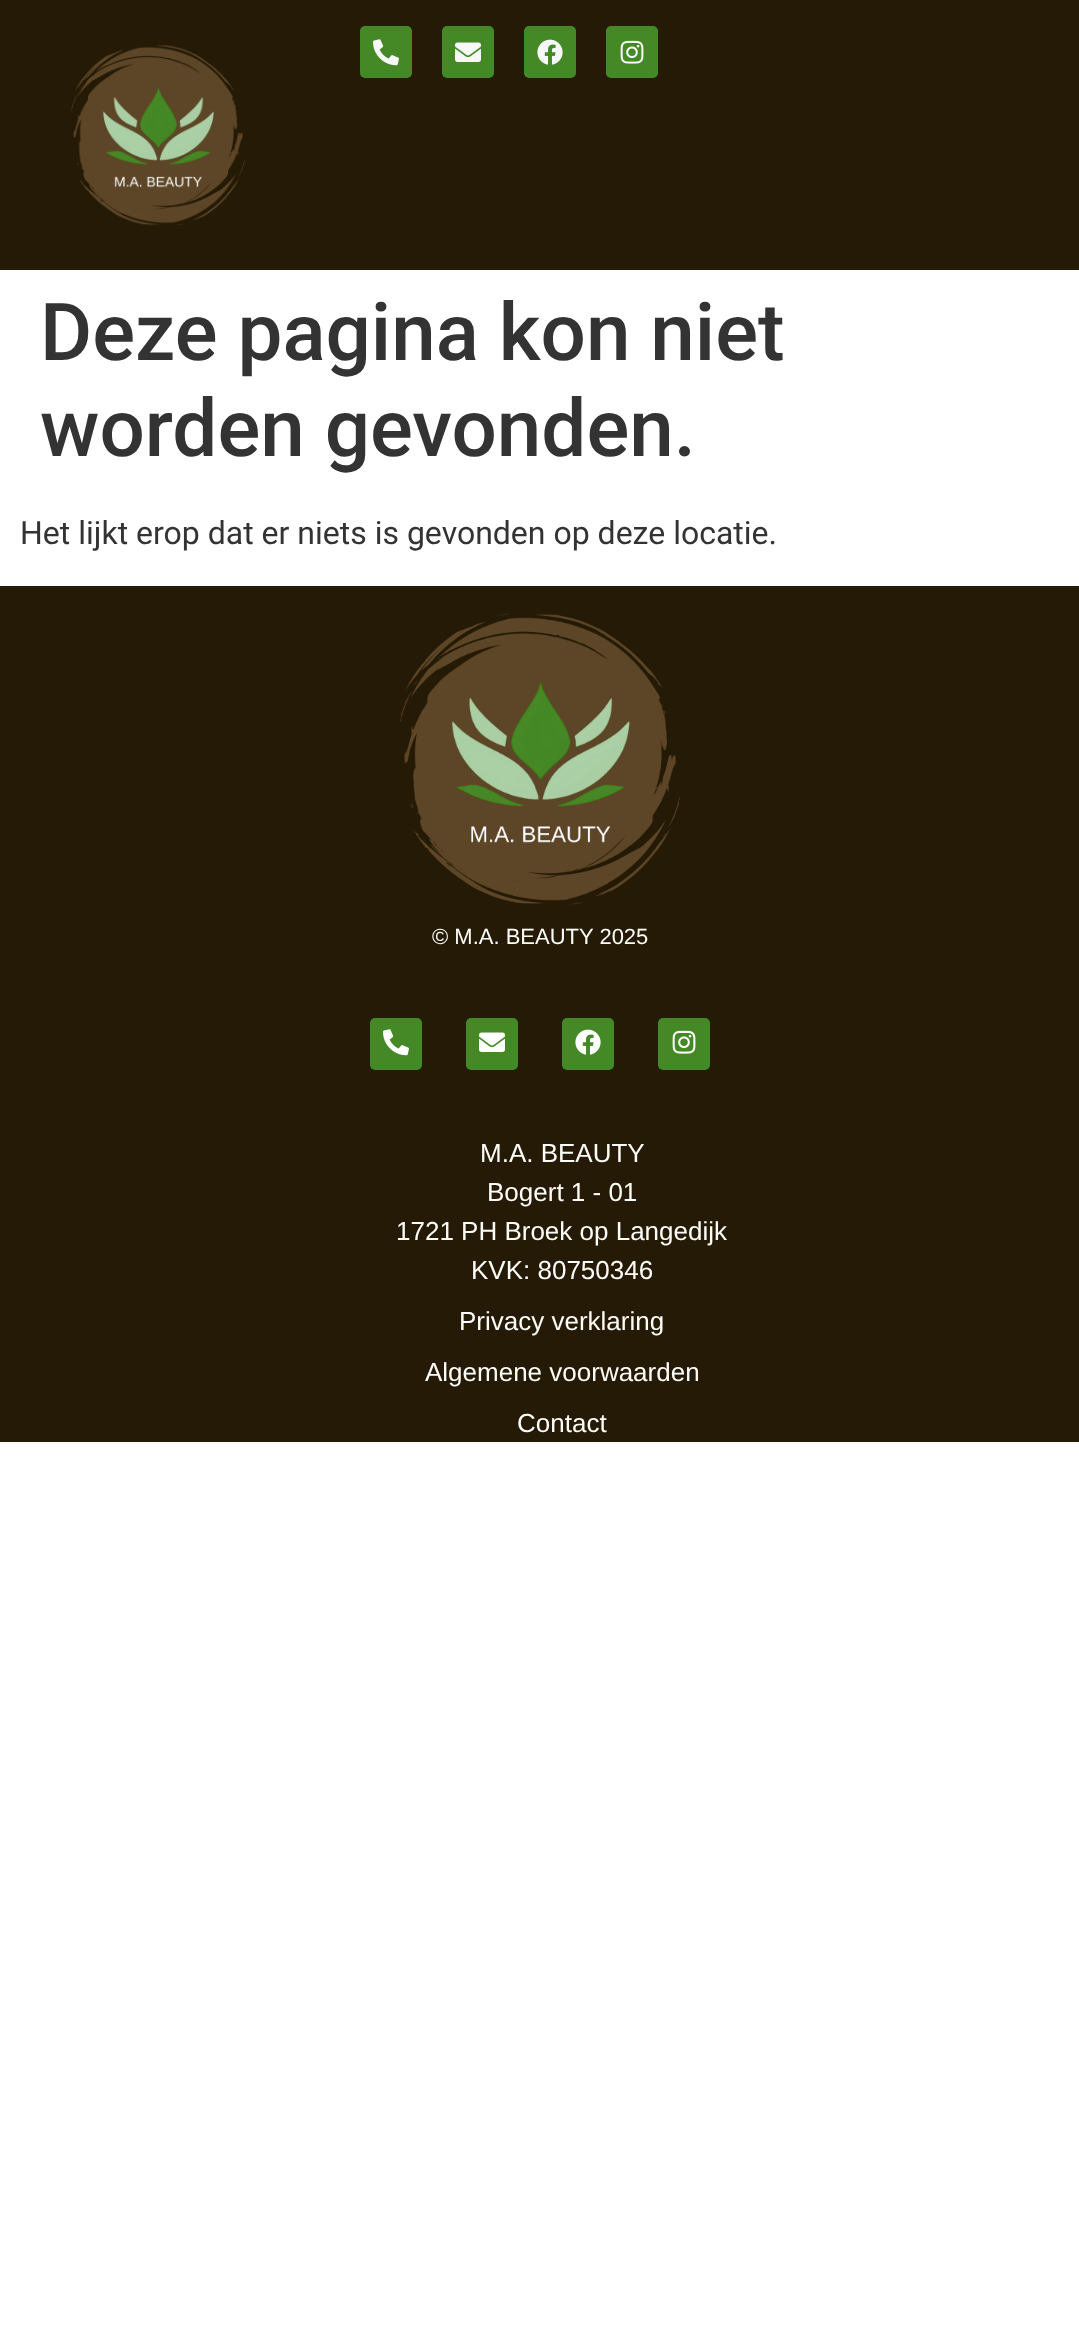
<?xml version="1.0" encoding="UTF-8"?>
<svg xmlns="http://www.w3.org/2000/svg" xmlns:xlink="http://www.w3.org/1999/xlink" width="1079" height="2341">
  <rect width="100%" height="100%" fill="#ffffff" />
  <rect width="1079" height="270" fill="#241a05" />
  <image x="71" y="45" width="175" height="181" xlink:href="image1.png" />
  <rect x="360" y="26" width="52" height="52" rx="5" fill="#448926" />
  <image x="373" y="39" width="26" height="27" xlink:href="image2.png" />
  <rect x="442" y="26" width="52" height="52" rx="5" fill="#448926" />
  <image x="455" y="42" width="26" height="20" xlink:href="image3.png" />
  <rect x="524" y="26" width="52" height="52" rx="5" fill="#448926" />
  <image x="537" y="39" width="26" height="26" xlink:href="image4.png" />
  <rect x="606" y="26" width="52" height="52" rx="5" fill="#448926" />
  <image x="620" y="40" width="24" height="24" xlink:href="image5.png" />
  <rect y="586" width="1079" height="856" fill="#241a05" />
  <image x="399" y="613" width="282" height="292" xlink:href="image6.png" />
  <rect x="370" y="1018" width="52" height="52" rx="5" fill="#448926" />
  <image x="383" y="1029" width="26" height="27" xlink:href="image7.png" />
  <rect x="466" y="1018" width="52" height="52" rx="5" fill="#448926" />
  <image x="479" y="1032" width="26" height="20" xlink:href="image8.png" />
  <rect x="562" y="1018" width="52" height="52" rx="5" fill="#448926" />
  <image x="575" y="1029" width="26" height="26" xlink:href="image9.png" />
  <rect x="658" y="1018" width="52" height="52" rx="5" fill="#448926" />
  <image x="672" y="1030" width="24" height="24" xlink:href="image10.png" />
  <text x="40" y="360" style="font-family: Roboto; font-size: 80px; font-weight: 500; fill: #333333">Deze pagina kon niet</text>
  <text x="40" y="456" style="font-family: Roboto; font-size: 80px; font-weight: 500; fill: #333333">worden gevonden.</text>
  <text x="20" y="544" style="font-family: Roboto; font-size: 32px; fill: #333333">Het lijkt erop dat er niets is gevonden op deze locatie.</text>
  <text x="432" y="944" style="font-family: Liberation Sans; font-size: 22px; fill: #fffdf9">© M.A. BEAUTY 2025</text>
  <text x="480" y="1162" style="font-family: Liberation Sans; font-size: 26px; fill: #fffdf9">M.A. BEAUTY</text>
  <text x="487" y="1201" style="font-family: Liberation Sans; font-size: 26px; fill: #fffdf9">Bogert 1 - 01</text>
  <text x="396" y="1240" style="font-family: Liberation Sans; font-size: 26px; fill: #fffdf9">1721 PH Broek op Langedijk</text>
  <text x="471" y="1279" style="font-family: Liberation Sans; font-size: 26px; fill: #fffdf9">KVK: 80750346</text>
  <text x="459" y="1330" style="font-family: Liberation Sans; font-size: 26px; fill: #fffdf9">Privacy verklaring</text>
  <text x="425" y="1381" style="font-family: Liberation Sans; font-size: 26px; fill: #fffdf9">Algemene voorwaarden</text>
  <text x="517" y="1432" style="font-family: Liberation Sans; font-size: 26px; fill: #fffdf9">Contact</text>
</svg>
